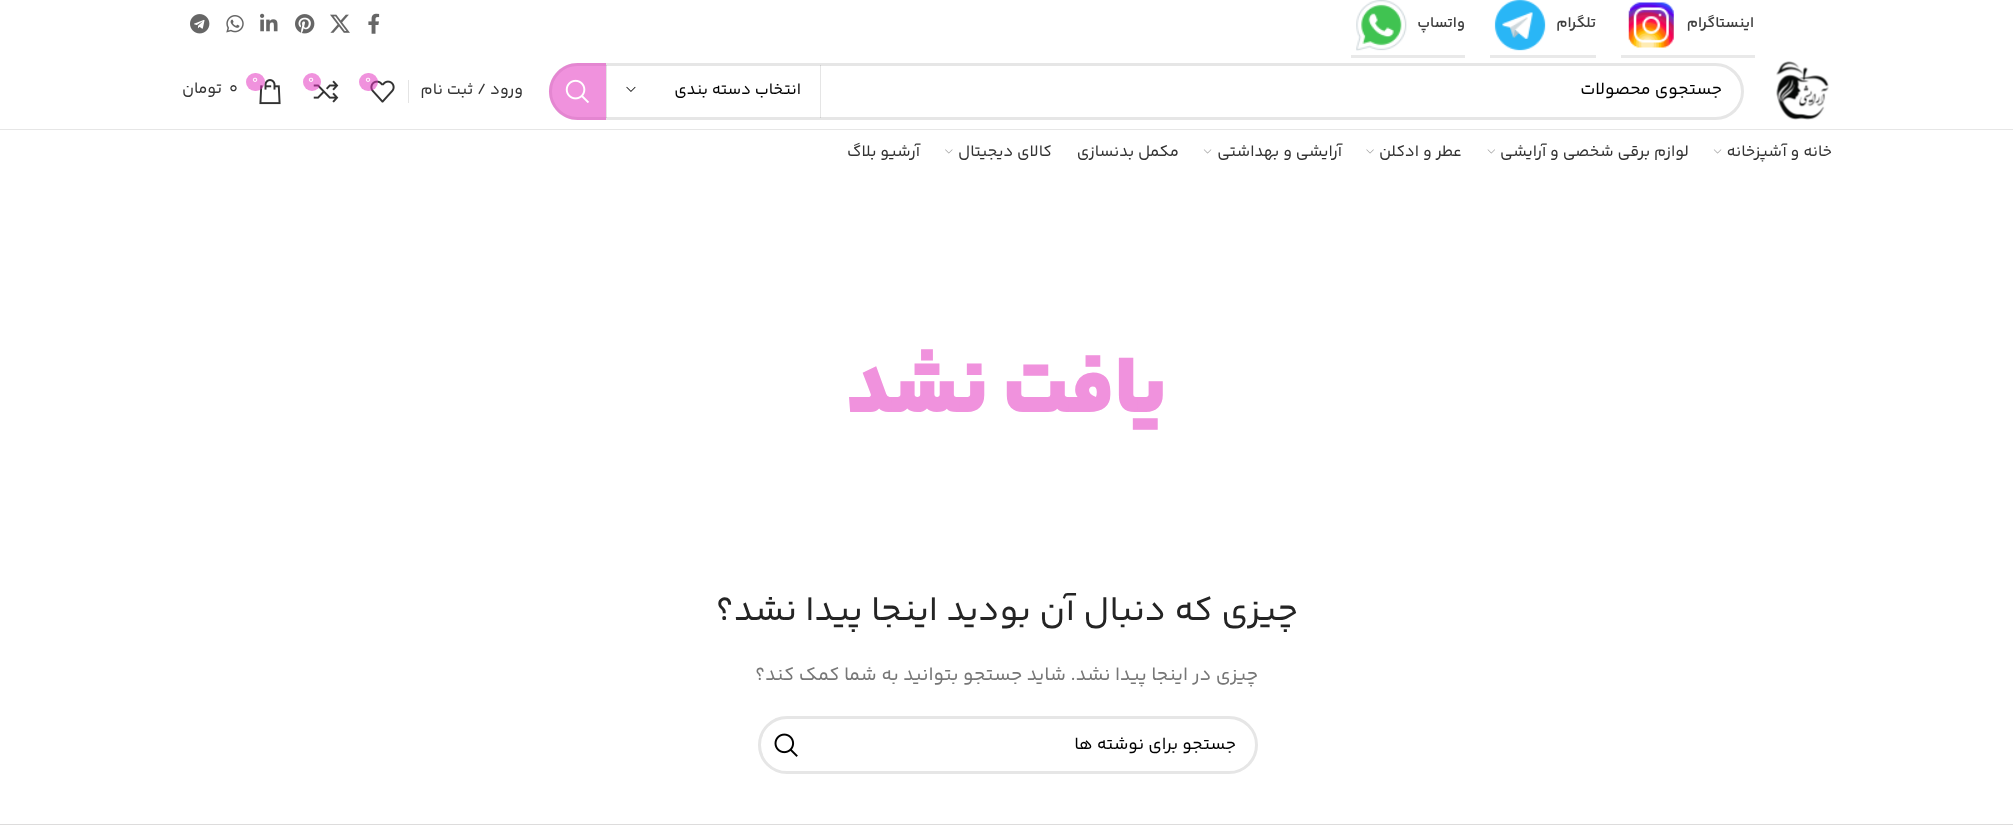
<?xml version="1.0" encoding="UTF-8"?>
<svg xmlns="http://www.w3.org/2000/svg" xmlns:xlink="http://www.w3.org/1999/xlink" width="2013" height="825">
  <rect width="100%" height="100%" fill="#ffffff" />
  <rect x="1621" y="55" width="134" height="3" fill="#e9e9e9" />
  <image x="1628" y="2" width="46" height="46" xlink:href="image1.png" />
  <rect x="1490" y="55" width="106" height="3" fill="#e9e9e9" />
  <image x="1494" y="0" width="52" height="51" xlink:href="image2.png" />
  <rect x="1351" y="55" width="114" height="3" fill="#e9e9e9" />
  <image x="1356" y="0" width="51" height="51" xlink:href="image3.png" />
  <image x="368" y="13" width="12" height="21" xlink:href="image4.png" />
  <image x="330" y="14" width="20" height="19" xlink:href="image5.png" />
  <image x="295" y="14" width="20" height="20" xlink:href="image6.png" />
  <image x="260" y="13" width="18" height="19" xlink:href="image7.png" />
  <image x="226" y="15" width="18" height="18" xlink:href="image8.png" />
  <image x="190" y="14" width="20" height="20" xlink:href="image9.png" />
  <rect y="129" width="2013" height="1" fill="#e6e6e6" />
  <image x="1776" y="61" width="53" height="59" xlink:href="image10.png" />
  <rect x="550.5" y="64.5" width="1192" height="54" rx="27" fill="none" stroke="#e6e6e6" stroke-width="3" />
  <rect x="820" y="65" width="1" height="53" fill="#000000" fill-opacity="0.1" />
  <rect x="606" y="65" width="1" height="53" fill="#000000" fill-opacity="0.1" />
  <image x="626" y="86" width="10" height="6" xlink:href="image11.png" />
  <path d="M 577.5 63 h 28.5 v 57 h -28.5 c -15.5 0 -28.5 -13 -28.5 -28.5 c 0 -15.5 13 -28.5 28.5 -28.5 z" fill="#e231bf" fill-opacity="0.53" />
  <image x="565" y="79" width="24" height="24" xlink:href="image12.png" />
  <image x="370" y="80" width="25" height="23" xlink:href="image13.png" />
  <rect x="359" y="73" width="19" height="18" rx="9" fill="#e231bf" fill-opacity="0.53" />
  <image x="313" y="80" width="26" height="23" xlink:href="image14.png" />
  <circle cx="312" cy="82" r="9" fill="#e231bf" fill-opacity="0.53" />
  <image x="259" y="79" width="22" height="26" xlink:href="image15.png" />
  <rect x="246" y="73" width="19" height="18" rx="9" fill="#e231bf" fill-opacity="0.53" />
  <rect x="408" y="80" width="1" height="23" fill="#e4e4e4" />
  <image x="1713" y="149" width="9" height="5" xlink:href="image16.png" />
  <image x="1487" y="149" width="8" height="5" xlink:href="image17.png" />
  <image x="1366" y="149" width="8" height="5" xlink:href="image18.png" />
  <image x="1203" y="149" width="9" height="5" xlink:href="image16.png" />
  <image x="945" y="149" width="8" height="5" xlink:href="image19.png" />
  <rect x="759.5" y="717.5" width="497" height="55" rx="27.5" fill="none" stroke="#e6e6e6" stroke-width="3" />
  <image x="774" y="733" width="24" height="24" xlink:href="image20.png" />
  <rect y="824" width="2013" height="1" fill="#dddcdc" />
  <text x="1754" y="27" style="font-family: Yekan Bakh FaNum; font-size: 15px; font-weight: 600; direction: rtl; fill: #3e3e3e">اینستاگرام</text>
  <text x="1596" y="27" style="font-family: Yekan Bakh FaNum; font-size: 15px; font-weight: 600; direction: rtl; fill: #3e3e3e">تلگرام</text>
  <text x="1465" y="27" style="font-family: Yekan Bakh FaNum; font-size: 15px; font-weight: 600; direction: rtl; fill: #3e3e3e">واتساپ</text>
  <text x="1722" y="94" style="font-family: Yekan Bakh FaNum; font-size: 17.5px; direction: rtl; fill: #000000">جستجوی محصولات</text>
  <text x="801" y="94" style="font-family: Yekan Bakh FaNum; font-size: 16.25px; direction: rtl; fill: #000000">انتخاب دسته بندی</text>
  <text x="365" y="83" style="font-family: Yekan Bakh FaNum; font-size: 11px; fill: #ffffff">0</text>
  <text x="308" y="83" style="font-family: Yekan Bakh FaNum; font-size: 11px; fill: #ffffff">0</text>
  <text x="252" y="83" style="font-family: Yekan Bakh FaNum; font-size: 11px; fill: #ffffff">0</text>
  <text x="229" y="93" style="font-family: Yekan Bakh FaNum; font-size: 16.25px; fill: #333333">0</text>
  <text x="222" y="93" style="font-family: Yekan Bakh FaNum; font-size: 16.25px; direction: rtl; fill: #333333">تومان</text>
  <text x="523" y="94" style="font-family: Yekan Bakh FaNum; font-size: 16.25px; direction: rtl; fill: #333333">ورود / ثبت نام</text>
  <text x="1832" y="156" style="font-family: Yekan Bakh FaNum; font-size: 16.25px; direction: rtl; fill: #333333">خانه و آشپزخانه</text>
  <text x="1689" y="156" style="font-family: Yekan Bakh FaNum; font-size: 16.25px; direction: rtl; fill: #333333">لوازم برقی شخصی و آرایشی</text>
  <text x="1462" y="156" style="font-family: Yekan Bakh FaNum; font-size: 16.25px; direction: rtl; fill: #333333">عطر و ادکلن</text>
  <text x="1342" y="156" style="font-family: Yekan Bakh FaNum; font-size: 16.25px; direction: rtl; fill: #333333">آرایشی و بهداشتی</text>
  <text x="1179" y="156" style="font-family: Yekan Bakh FaNum; font-size: 16.25px; direction: rtl; fill: #333333">مکمل بدنسازی</text>
  <text x="1052" y="156" style="font-family: Yekan Bakh FaNum; font-size: 16.25px; direction: rtl; fill: #333333">کالای دیجیتال</text>
  <text x="920" y="156" style="font-family: Yekan Bakh FaNum; font-size: 16.25px; direction: rtl; fill: #333333">آرشیو بلاگ</text>
  <text x="1167" y="412" style="font-family: Yekan Bakh FaNum; font-size: 84.5px; font-weight: 900; direction: rtl; fill: #f092dd">یافت نشد</text>
  <text x="1298" y="620" style="font-family: Yekan Bakh FaNum; font-size: 35px; direction: rtl; fill: #242424">چیزی که دنبال آن بودید اینجا پیدا نشد؟</text>
  <text x="1258" y="680" style="font-family: Yekan Bakh FaNum; font-size: 19.25px; direction: rtl; fill: #777777">چیزی در اینجا پیدا نشد. شاید جستجو بتوانید به شما کمک کند؟</text>
  <text x="1236" y="749" style="font-family: Yekan Bakh FaNum; font-size: 17.5px; direction: rtl; fill: #000000">جستجو برای نوشته ها</text>
</svg>
